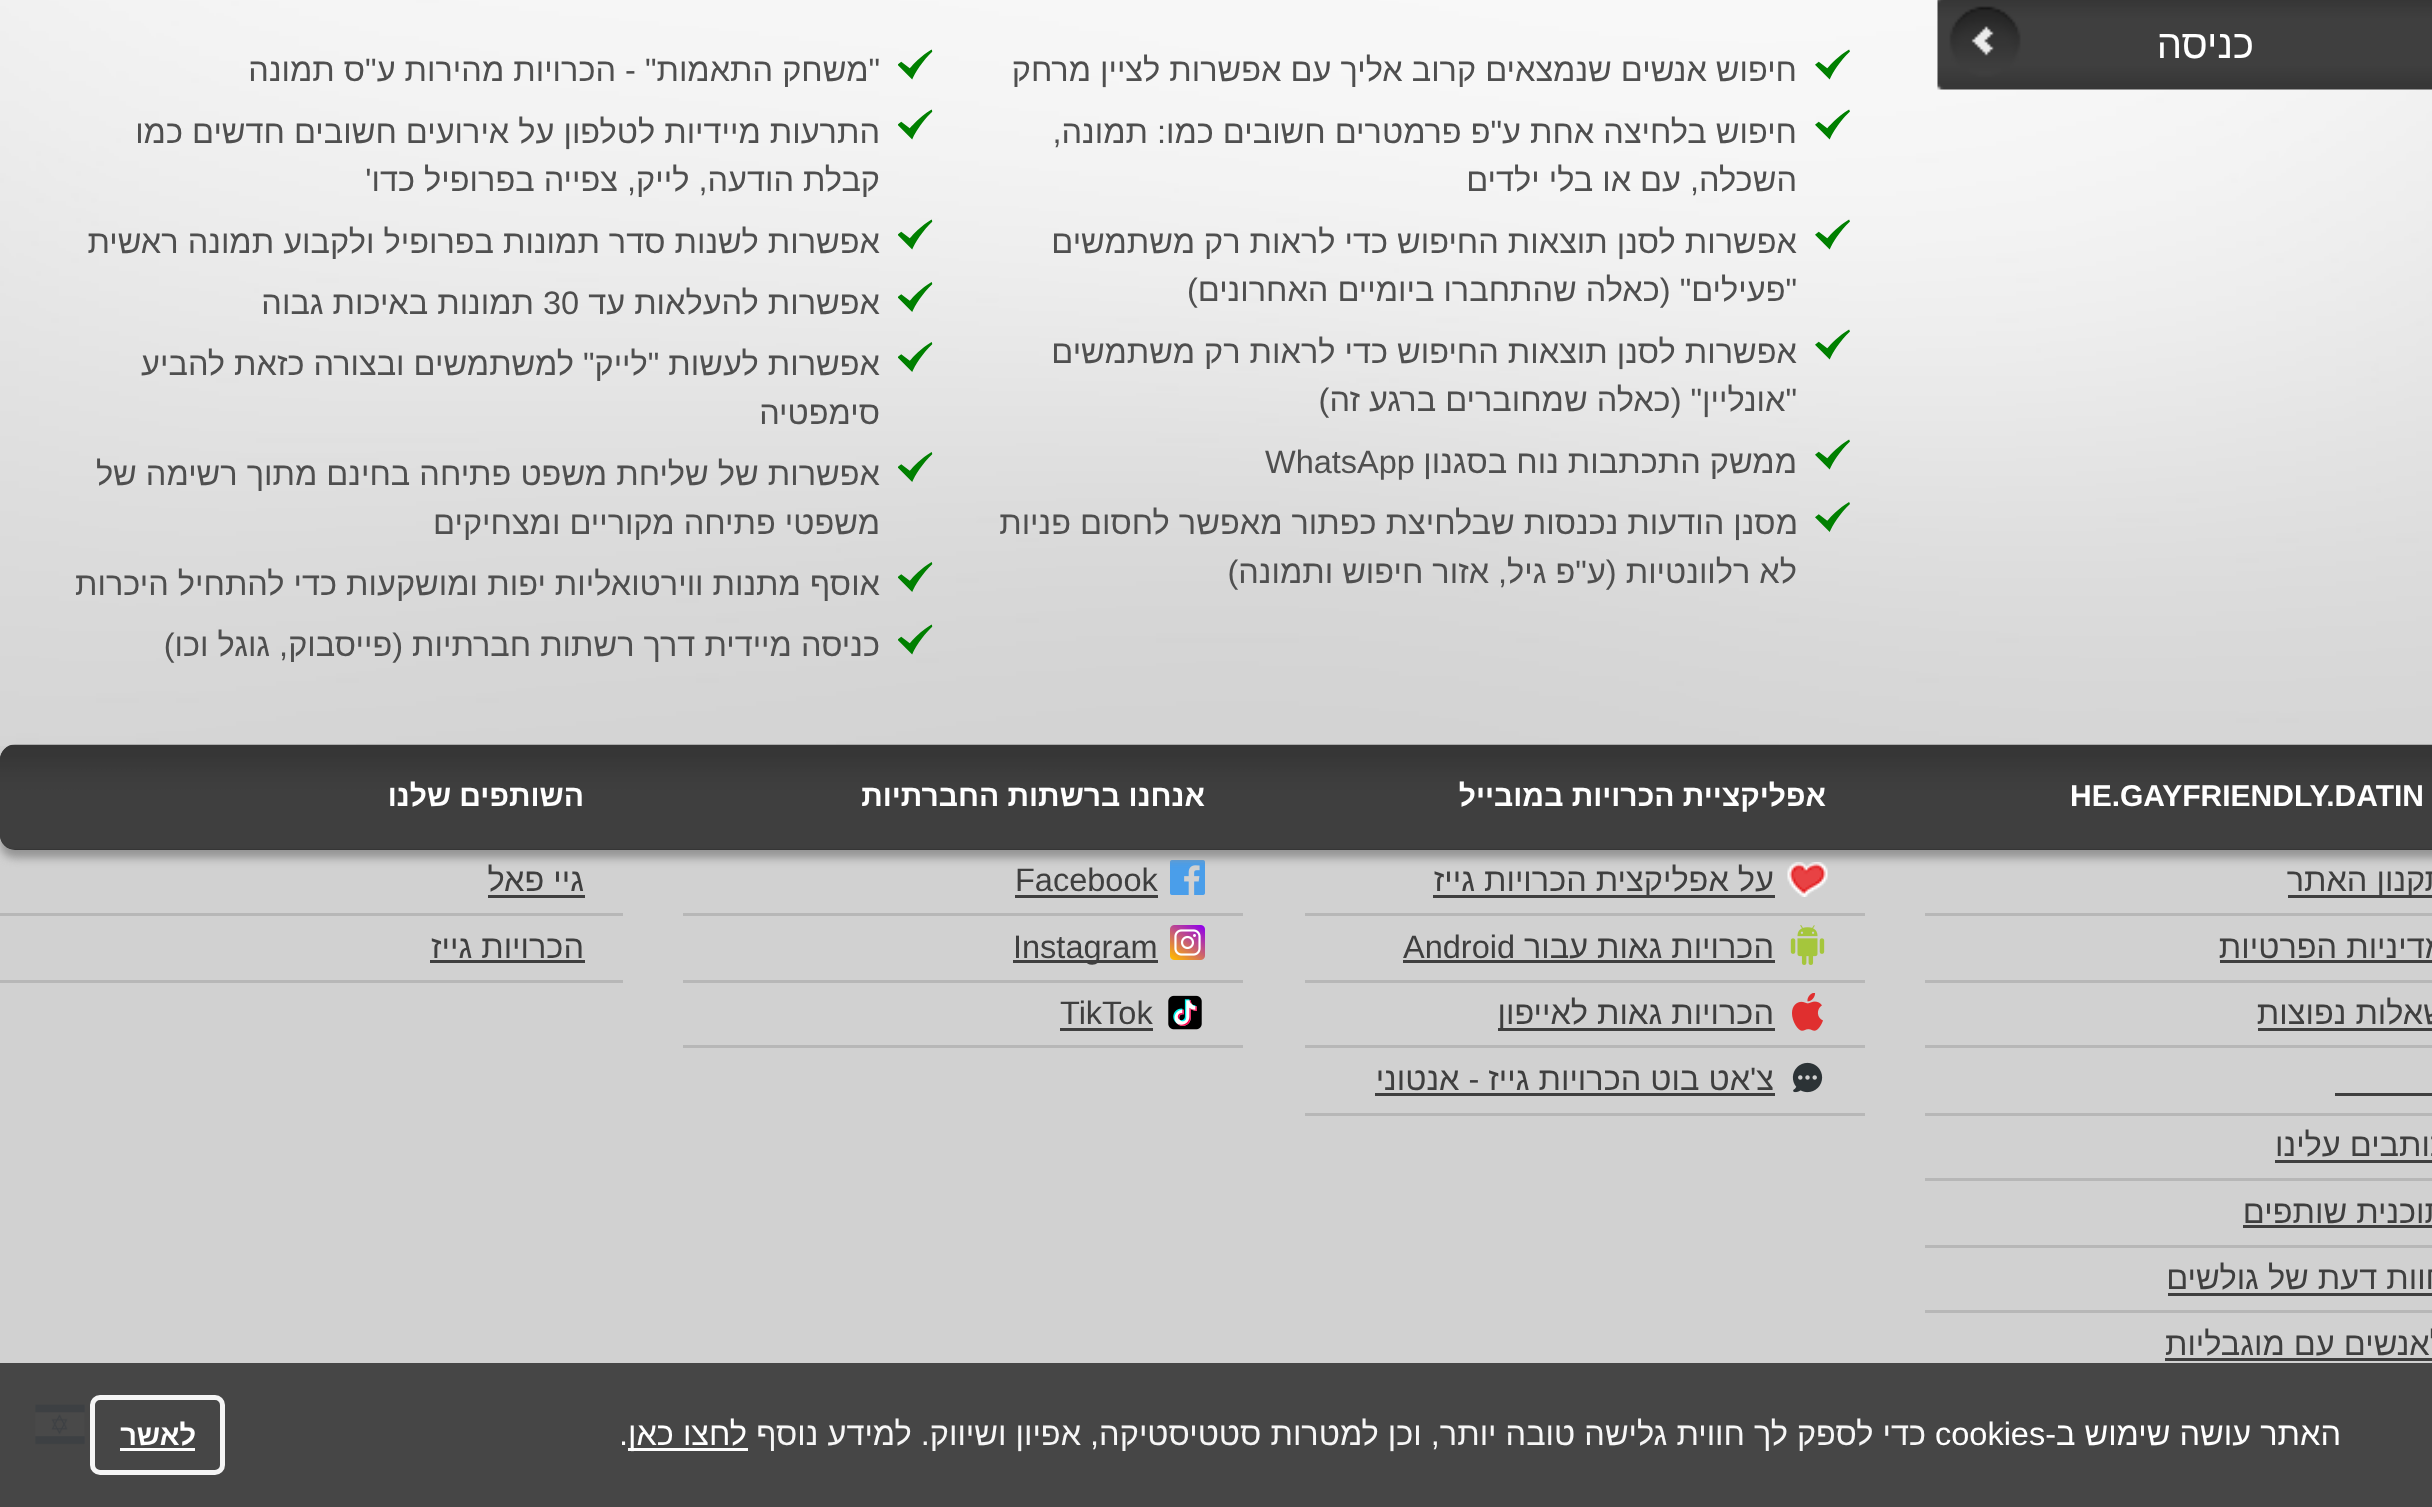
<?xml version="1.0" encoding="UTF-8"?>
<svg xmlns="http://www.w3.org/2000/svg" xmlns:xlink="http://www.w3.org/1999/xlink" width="2432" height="1507">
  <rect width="100%" height="100%" fill="#d1d1d1" />
  <rect y="1363" width="2432" height="144" fill="#464646" />
  <image x="0" y="0" width="2432" height="746" xlink:href="image1.png" />
  <image x="1937" y="0" width="495" height="90" xlink:href="image2.png" />
  <image x="1815" y="49" width="35" height="31" xlink:href="image3.png" />
  <image x="1815" y="109" width="35" height="31" xlink:href="image4.png" />
  <image x="1815" y="219" width="35" height="31" xlink:href="image5.png" />
  <image x="1815" y="329" width="35" height="31" xlink:href="image6.png" />
  <image x="1815" y="439" width="35" height="31" xlink:href="image7.png" />
  <image x="1815" y="502" width="35" height="30" xlink:href="image8.png" />
  <image x="898" y="49" width="35" height="31" xlink:href="image9.png" />
  <image x="898" y="109" width="35" height="31" xlink:href="image10.png" />
  <image x="898" y="219" width="35" height="31" xlink:href="image11.png" />
  <image x="898" y="282" width="35" height="30" xlink:href="image12.png" />
  <image x="898" y="342" width="35" height="30" xlink:href="image13.png" />
  <image x="898" y="452" width="35" height="30" xlink:href="image14.png" />
  <image x="898" y="562" width="35" height="30" xlink:href="image15.png" />
  <image x="898" y="624" width="35" height="31" xlink:href="image16.png" />
  <image x="1787" y="862" width="41" height="35" xlink:href="image18.png" />
  <image x="1170" y="860" width="35" height="35" xlink:href="image22.png" />
  <rect y="753" width="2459" height="105" rx="15" fill="#949494" filter="blur(4px)" />
  <rect y="745" width="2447" height="105" rx="15" fill="#353535" />
  <image x="0" y="744" width="2432" height="105" xlink:href="image17.png" />
  <rect x="1925" y="913" width="507" height="3" fill="#b7b7b7" />
  <rect x="2288" y="895" width="144" height="3" fill="#3f3f3f" />
  <rect x="1925" y="980" width="507" height="3" fill="#b7b7b7" />
  <rect x="2220" y="960" width="212" height="3" fill="#3f3f3f" />
  <rect x="1925" y="1045" width="507" height="3" fill="#b7b7b7" />
  <rect x="2258" y="1028" width="174" height="3" fill="#3f3f3f" />
  <rect x="1925" y="1113" width="507" height="3" fill="#b7b7b7" />
  <rect x="2335" y="1093" width="97" height="3" fill="#3f3f3f" />
  <rect x="1925" y="1178" width="507" height="3" fill="#b7b7b7" />
  <rect x="2275" y="1160" width="157" height="3" fill="#3f3f3f" />
  <rect x="1925" y="1245" width="507" height="3" fill="#b7b7b7" />
  <rect x="2243" y="1225" width="189" height="3" fill="#3f3f3f" />
  <rect x="1925" y="1310" width="507" height="3" fill="#b7b7b7" />
  <rect x="2168" y="1293" width="264" height="3" fill="#3f3f3f" />
  <rect x="2165" y="1358" width="267" height="3" fill="#3f3f3f" />
  <rect x="1305" y="913" width="560" height="3" fill="#b7b7b7" />
  <rect x="1433" y="895" width="342" height="3" fill="#3f3f3f" />
  <rect x="1305" y="980" width="560" height="3" fill="#b7b7b7" />
  <image x="1790" y="925" width="35" height="40" xlink:href="image19.png" />
  <rect x="1403" y="960" width="372" height="3" fill="#3f3f3f" />
  <rect x="1305" y="1045" width="560" height="3" fill="#b7b7b7" />
  <image x="1792" y="993" width="31" height="38" xlink:href="image20.png" />
  <rect x="1498" y="1028" width="277" height="3" fill="#3f3f3f" />
  <rect x="1305" y="1113" width="560" height="3" fill="#b7b7b7" />
  <image x="1792" y="1062" width="31" height="31" xlink:href="image21.png" />
  <rect x="1375" y="1093" width="400" height="3" fill="#3f3f3f" />
  <rect x="683" y="913" width="560" height="3" fill="#b7b7b7" />
  <rect x="1015" y="895" width="143" height="3" fill="#3f3f3f" />
  <rect x="683" y="980" width="560" height="3" fill="#b7b7b7" />
  <image x="1170" y="925" width="35" height="35" xlink:href="image23.png" />
  <rect x="1013" y="960" width="145" height="3" fill="#3f3f3f" />
  <rect x="683" y="1045" width="560" height="3" fill="#b7b7b7" />
  <image x="1168" y="995" width="34" height="35" xlink:href="image24.png" />
  <rect x="1060" y="1028" width="93" height="3" fill="#3f3f3f" />
  <rect y="913" width="623" height="3" fill="#b7b7b7" />
  <rect x="488" y="895" width="97" height="3" fill="#3f3f3f" />
  <rect y="980" width="623" height="3" fill="#b7b7b7" />
  <rect x="430" y="960" width="155" height="3" fill="#3f3f3f" />
  <image x="35" y="1404" width="50" height="41" xlink:href="image25.png" />
  <rect x="628" y="1448" width="120" height="3" fill="#fdfdfd" />
  <rect x="92.5" y="1397.5" width="130" height="75" rx="7.5" fill="none" stroke="#ffffff" stroke-opacity="0.95" stroke-width="5" />
  <rect x="120" y="1448" width="75" height="3" fill="#fdfdfd" />
  <text x="2254" y="58" style="font-family: Liberation Sans; font-size: 40px; direction: rtl; fill: #ffffff">כניסה</text>
  <text x="1797" y="81" style="font-family: Liberation Sans; font-size: 32.5px; direction: rtl; fill: #4f4f4f">חיפוש אנשים שנמצאים קרוב אליך עם אפשרות לציין מרחק</text>
  <text x="1797" y="143" style="font-family: Liberation Sans; font-size: 32.5px; direction: rtl; fill: #4f4f4f">חיפוש בלחיצה אחת ע"פ פרמטרים חשובים כמו: תמונה,</text>
  <text x="1797" y="191" style="font-family: Liberation Sans; font-size: 32.5px; direction: rtl; fill: #4f4f4f">השכלה, עם או בלי ילדים</text>
  <text x="1797" y="253" style="font-family: Liberation Sans; font-size: 32.5px; direction: rtl; fill: #4f4f4f">אפשרות לסנן תוצאות החיפוש כדי לראות רק משתמשים</text>
  <text x="1797" y="301" style="font-family: Liberation Sans; font-size: 32.5px; direction: rtl; fill: #4f4f4f">"פעילים" (כאלה שהתחברו ביומיים האחרונים)</text>
  <text x="1797" y="363" style="font-family: Liberation Sans; font-size: 32.5px; direction: rtl; fill: #4f4f4f">אפשרות לסנן תוצאות החיפוש כדי לראות רק משתמשים</text>
  <text x="1797" y="411" style="font-family: Liberation Sans; font-size: 32.5px; direction: rtl; fill: #4f4f4f">"אונליין" (כאלה שמחוברים ברגע זה)</text>
  <text x="1797" y="473" style="font-family: Liberation Sans; font-size: 32.5px; direction: rtl; fill: #4f4f4f">ממשק התכתבות נוח בסגנון</text>
  <text x="1265" y="473" style="font-family: Liberation Sans; font-size: 32.5px; fill: #4f4f4f">WhatsApp</text>
  <text x="1798" y="534" style="font-family: Liberation Sans; font-size: 32.5px; direction: rtl; fill: #4f4f4f">מסנן הודעות נכנסות שבלחיצת כפתור מאפשר לחסום פניות</text>
  <text x="1797" y="583" style="font-family: Liberation Sans; font-size: 32.5px; direction: rtl; fill: #4f4f4f">לא רלוונטיות (ע"פ גיל, אזור חיפוש ותמונה)</text>
  <text x="880" y="81" style="font-family: Liberation Sans; font-size: 32.5px; direction: rtl; fill: #4f4f4f">"משחק התאמות" - הכרויות מהירות ע"ס תמונה</text>
  <text x="880" y="143" style="font-family: Liberation Sans; font-size: 32.5px; direction: rtl; fill: #4f4f4f">התרעות מיידיות לטלפון על אירועים חשובים חדשים כמו</text>
  <text x="880" y="191" style="font-family: Liberation Sans; font-size: 32.5px; direction: rtl; fill: #4f4f4f">קבלת הודעה, לייק, צפייה בפרופיל כדו'</text>
  <text x="880" y="253" style="font-family: Liberation Sans; font-size: 32.5px; direction: rtl; fill: #4f4f4f">אפשרות לשנות סדר תמונות בפרופיל ולקבוע תמונה ראשית</text>
  <text x="880" y="314" style="font-family: Liberation Sans; font-size: 32.5px; direction: rtl; fill: #4f4f4f">אפשרות להעלאות עד</text>
  <text x="543" y="314" style="font-family: Liberation Sans; font-size: 32.5px; fill: #4f4f4f">30</text>
  <text x="534" y="314" style="font-family: Liberation Sans; font-size: 32.5px; direction: rtl; fill: #4f4f4f">תמונות באיכות גבוה</text>
  <text x="880" y="375" style="font-family: Liberation Sans; font-size: 32.5px; direction: rtl; fill: #4f4f4f">אפשרות לעשות "לייק" למשתמשים ובצורה כזאת להביע</text>
  <text x="880" y="424" style="font-family: Liberation Sans; font-size: 32.5px; direction: rtl; fill: #4f4f4f">סימפטיה</text>
  <text x="880" y="485" style="font-family: Liberation Sans; font-size: 32.5px; direction: rtl; fill: #4f4f4f">אפשרות של שליחת משפט פתיחה בחינם מתוך רשימה של</text>
  <text x="880" y="534" style="font-family: Liberation Sans; font-size: 32.5px; direction: rtl; fill: #4f4f4f">משפטי פתיחה מקוריים ומצחיקים</text>
  <text x="880" y="595" style="font-family: Liberation Sans; font-size: 32.5px; direction: rtl; fill: #4f4f4f">אוסף מתנות ווירטואליות יפות</text>
  <text x="478" y="595" style="font-family: Liberation Sans; font-size: 32.5px; direction: rtl; fill: #4f4f4f">ומושקעות כדי להתחיל היכרות</text>
  <text x="880" y="656" style="font-family: Liberation Sans; font-size: 32.5px; direction: rtl; fill: #4f4f4f">כניסה מיידית דרך רשתות חברתיות (פייסבוק, גוגל וכו)</text>
  <text x="2070" y="806" style="font-family: Liberation Sans; font-size: 30px; font-weight: bold; fill: #ffffff">HE.GAYFRIENDLY.DATIN</text>
  <text x="1826" y="806" style="font-family: Liberation Sans; font-size: 30px; font-weight: bold; direction: rtl; fill: #ffffff">אפליקציית הכרויות במובייל</text>
  <text x="1205" y="806" style="font-family: Liberation Sans; font-size: 30px; font-weight: bold; direction: rtl; fill: #ffffff">אנחנו ברשתות החברתיות</text>
  <text x="584" y="806" style="font-family: Liberation Sans; font-size: 30px; font-weight: bold; direction: rtl; fill: #ffffff">השותפים שלנו</text>
  <text x="2447" y="891" style="font-family: Liberation Sans; font-size: 32.5px; direction: rtl; fill: #3f3f3f">תקנון האתר</text>
  <text x="2447" y="958" style="font-family: Liberation Sans; font-size: 32.5px; direction: rtl; fill: #3f3f3f">מדיניות הפרטיות</text>
  <text x="2447" y="1024" style="font-family: Liberation Sans; font-size: 32.5px; direction: rtl; fill: #3f3f3f">שאלות נפוצות</text>
  <text x="2447" y="1156" style="font-family: Liberation Sans; font-size: 32.5px; direction: rtl; fill: #3f3f3f">כותבים עלינו</text>
  <text x="2447" y="1223" style="font-family: Liberation Sans; font-size: 32.5px; direction: rtl; fill: #3f3f3f">תוכנית שותפים</text>
  <text x="2447" y="1289" style="font-family: Liberation Sans; font-size: 32.5px; direction: rtl; fill: #3f3f3f">חוות דעת של גולשים</text>
  <text x="2447" y="1355" style="font-family: Liberation Sans; font-size: 32.5px; direction: rtl; fill: #3f3f3f">לאנשים עם מוגבליות</text>
  <text x="1774" y="891" style="font-family: Liberation Sans; font-size: 32.5px; direction: rtl; fill: #3f3f3f">על אפליקצית הכרויות גייז</text>
  <text x="1774" y="958" style="font-family: Liberation Sans; font-size: 32.5px; direction: rtl; fill: #3f3f3f">הכרויות גאות עבור</text>
  <text x="1403" y="958" style="font-family: Liberation Sans; font-size: 32.5px; fill: #3f3f3f">Android</text>
  <text x="1774" y="1024" style="font-family: Liberation Sans; font-size: 32.5px; direction: rtl; fill: #3f3f3f">הכרויות גאות לאייפון</text>
  <text x="1774" y="1090" style="font-family: Liberation Sans; font-size: 32.5px; direction: rtl; fill: #3f3f3f">צ'אט בוט הכרויות גייז - אנטוני</text>
  <text x="1015" y="891" style="font-family: Liberation Sans; font-size: 32.5px; fill: #3f3f3f">Facebook</text>
  <text x="1013" y="958" style="font-family: Liberation Sans; font-size: 32.5px; fill: #3f3f3f">Instagram</text>
  <text x="1060" y="1024" style="font-family: Liberation Sans; font-size: 32.5px; fill: #3f3f3f">TikTok</text>
  <text x="584" y="891" style="font-family: Liberation Sans; font-size: 32.5px; direction: rtl; fill: #3f3f3f">גיי פאל</text>
  <text x="584" y="958" style="font-family: Liberation Sans; font-size: 32.5px; direction: rtl; fill: #3f3f3f">הכרויות גייז</text>
  <text x="2341" y="1445" style="font-family: Liberation Sans; font-size: 32.5px; direction: rtl; fill: #ffffff">האתר עושה שימוש ב-</text>
  <text x="1935" y="1445" style="font-family: Liberation Sans; font-size: 32.5px; fill: #ffffff">cookies</text>
  <text x="1926" y="1445" style="font-family: Liberation Sans; font-size: 32.5px; direction: rtl; fill: #f6f6f6">כדי לספק לך חווית גלישה טובה יותר, וכן למטרות סטטיסטיקה, אפיון ושיווק. למידע נוסף</text>
  <text x="747" y="1445" style="font-family: Liberation Sans; font-size: 32.5px; direction: rtl; fill: #ffffff">לחצו כאן</text>
  <text x="619" y="1445" style="font-family: Liberation Sans; font-size: 32.5px; fill: #ffffff">.</text>
  <text x="196" y="1445" style="font-family: Liberation Sans; font-size: 29px; font-weight: bold; direction: rtl; fill: #ffffff">לאשר</text>
</svg>
